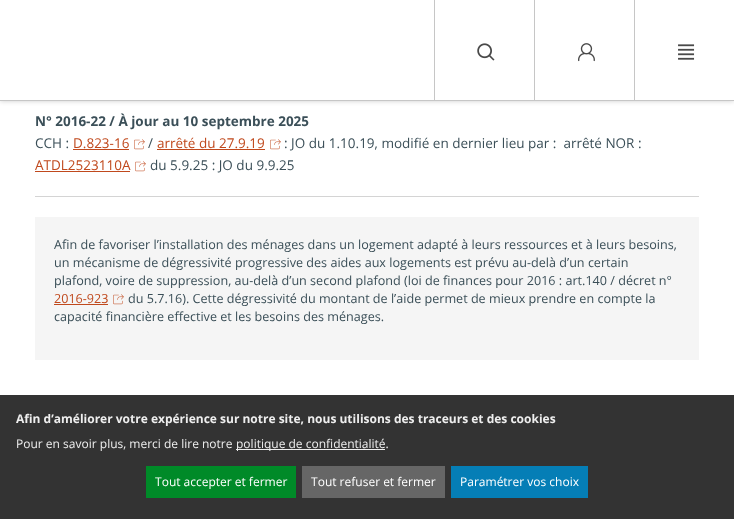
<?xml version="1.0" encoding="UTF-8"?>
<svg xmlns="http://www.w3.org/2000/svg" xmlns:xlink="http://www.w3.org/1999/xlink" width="734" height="519">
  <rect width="100%" height="100%" fill="#ffffff" />
  <rect width="734" height="101" fill="#000000" fill-opacity="0.2" filter="blur(2.5px)" />
  <rect width="734" height="100" fill="#ffffff" />
  <rect y="100" width="734" height="1" fill="#c6c6c6" />
  <rect x="434" width="1" height="100" fill="#c6c6c6" />
  <image x="477" y="43" width="18" height="18" xlink:href="image1.png" />
  <rect x="534" width="1" height="100" fill="#c6c6c6" />
  <image x="578" y="43" width="17" height="19" xlink:href="image2.png" />
  <rect x="634" width="1" height="100" fill="#c6c6c6" />
  <image x="678" y="44" width="17" height="16" xlink:href="image3.png" />
  <rect x="73" y="149" width="56" height="1" fill="#c0491d" />
  <image x="134" y="139" width="11" height="11" xlink:href="image4.png" />
  <rect x="157" y="149" width="108" height="1" fill="#c0491d" />
  <image x="270" y="139" width="11" height="11" xlink:href="image4.png" />
  <rect x="35" y="171" width="95" height="1" fill="#c0491d" />
  <image x="135" y="161" width="11" height="11" xlink:href="image4.png" />
  <rect x="35" y="196" width="664" height="1" fill="#d4d4d4" />
  <rect x="35" y="217" width="664" height="143" fill="#f5f5f5" />
  <rect x="54" y="304" width="54" height="1" fill="#c0491d" />
  <image x="113" y="294" width="11" height="11" xlink:href="image5.png" />
  <rect y="395" width="734" height="124" fill="#333333" />
  <rect x="236" y="449" width="149" height="1" fill="#eeeeee" />
  <rect x="146" y="466" width="150" height="32" fill="#008a28" />
  <rect x="302" y="466" width="143" height="32" fill="#666666" />
  <rect x="451" y="466" width="137" height="32" fill="#057eb6" />
  <text x="35" y="126" style="font-family: Open Sans; font-size: 13.5px; font-weight: bold; fill: #3b4f58">N° 2016-22 / À jour au 10 septembre 2025</text>
  <text x="35" y="148" style="font-family: Open Sans; font-size: 13.5px; fill: #3b4f58">CCH :</text>
  <text x="73" y="148" style="font-family: Open Sans; font-size: 13.5px; fill: #c0491d">D.823-16</text>
  <text x="148" y="148" style="font-family: Open Sans; font-size: 13.5px; fill: #3b4f58">/</text>
  <text x="157" y="148" style="font-family: Open Sans; font-size: 13.5px; fill: #c0491d">arrêté du 27.9.19</text>
  <text x="284" y="148" style="font-family: Open Sans; font-size: 13.5px; fill: #3b4f58" xml:space="preserve">: JO du 1.10.19, modifié en dernier lieu par :  arrêté NOR :</text>
  <text x="35" y="170" style="font-family: Open Sans; font-size: 13.5px; fill: #c0491d">ATDL2523110A</text>
  <text x="150" y="170" style="font-family: Open Sans; font-size: 13.5px; fill: #3b4f58">du 5.9.25 : JO du 9.9.25</text>
  <text x="54" y="249" style="font-family: Open Sans; font-size: 12.6px; fill: #3b4f58">Afin de favoriser l’installation des ménages dans un logement adapté à leurs ressources et à leurs besoins,</text>
  <text x="54" y="267" style="font-family: Open Sans; font-size: 12.6px; fill: #3b4f58">un mécanisme de dégressivité progressive des aides aux logements est prévu au-delà d’un certain</text>
  <text x="54" y="285" style="font-family: Open Sans; font-size: 12.6px; fill: #3b4f58">plafond, voire de suppression, au-delà d’un second plafond (loi de finances pour 2016 : art.140 / décret n°</text>
  <text x="54" y="303" style="font-family: Open Sans; font-size: 12.6px; fill: #c0491d">2016-923</text>
  <text x="128" y="303" style="font-family: Open Sans; font-size: 12.6px; fill: #3b4f58">du 5.7.16). Cette dégressivité du montant de l’aide permet de mieux prendre en compte la</text>
  <text x="54" y="321" style="font-family: Open Sans; font-size: 12.6px; fill: #3b4f58">capacité financière effective et les besoins des ménages.</text>
  <text x="16" y="423" style="font-family: Open Sans; font-size: 12px; font-weight: bold; fill: #eeeeee">Afin d’améliorer votre expérience sur notre site, nous utilisons des traceurs et des cookies</text>
  <text x="16" y="448" style="font-family: Open Sans; font-size: 12px; fill: #eeeeee">Pour en savoir plus, merci de lire notre</text>
  <text x="236" y="448" style="font-family: Open Sans; font-size: 12px; fill: #eeeeee">politique de confidentialité.</text>
  <text x="155" y="486" style="font-family: Open Sans; font-size: 12px; fill: #ffffff">Tout accepter et fermer</text>
  <text x="311" y="486" style="font-family: Open Sans; font-size: 12px; fill: #ffffff">Tout refuser et fermer</text>
  <text x="460" y="486" style="font-family: Open Sans; font-size: 12px; fill: #ffffff">Paramétrer vos choix</text>
</svg>
